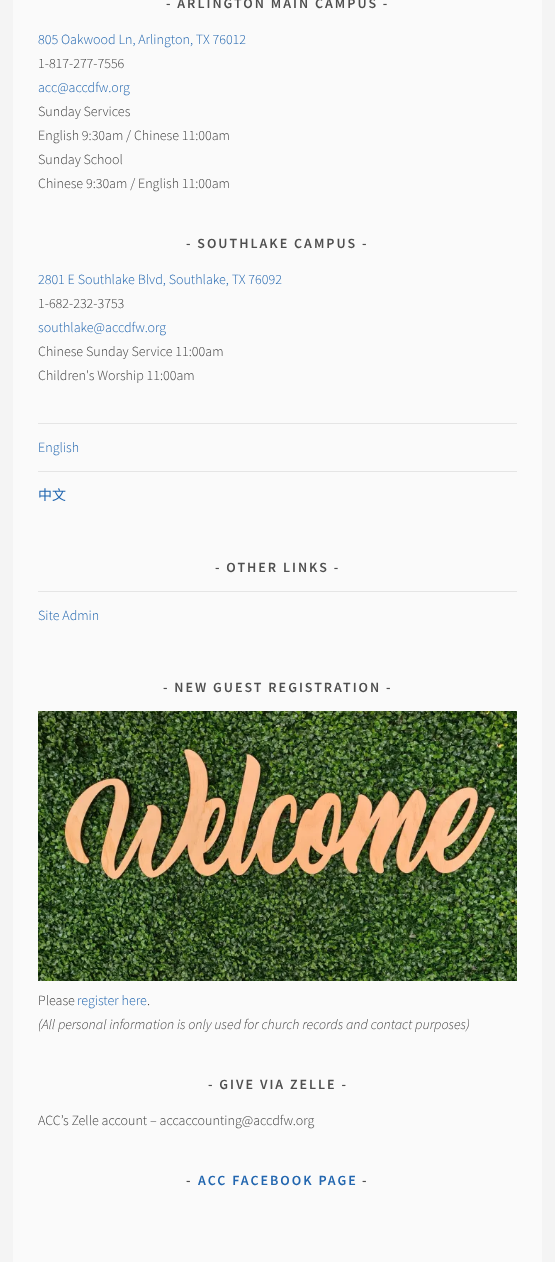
<?xml version="1.0" encoding="UTF-8"?>
<svg xmlns="http://www.w3.org/2000/svg" xmlns:xlink="http://www.w3.org/1999/xlink" width="555" height="1262">
  <rect width="100%" height="100%" fill="#f4f4f4" />
  <rect x="13" width="529" height="1262" fill="#fafafa" />
  <rect x="38" y="423" width="479" height="1" fill="#e5e5e5" />
  <rect x="38" y="471" width="479" height="1" fill="#e5e5e5" />
  <rect x="38" y="591" width="479" height="1" fill="#e5e5e5" />
  <image x="38" y="711" width="479" height="270" xlink:href="image1.png" />
  <text x="166" y="8" style="font-family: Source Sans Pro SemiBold; font-size: 14px; font-weight: 600; letter-spacing: 2px; fill: #4f4f4f">- ARLINGTON MAIN CAMPUS -</text>
  <text x="38" y="44" style="font-family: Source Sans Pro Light; font-size: 14px; font-weight: 300; fill: #2266af">805 Oakwood Ln, Arlington, TX 76012</text>
  <text x="38" y="68" style="font-family: Source Sans Pro Light; font-size: 14px; font-weight: 300; fill: #404040">1-817-277-7556</text>
  <text x="38" y="92" style="font-family: Source Sans Pro Light; font-size: 14px; font-weight: 300; fill: #2266af">acc@accdfw.org</text>
  <text x="38" y="116" style="font-family: Source Sans Pro Light; font-size: 14px; font-weight: 300; fill: #404040">Sunday Services</text>
  <text x="38" y="140" style="font-family: Source Sans Pro Light; font-size: 14px; font-weight: 300; fill: #404040">English 9:30am / Chinese 11:00am</text>
  <text x="38" y="164" style="font-family: Source Sans Pro Light; font-size: 14px; font-weight: 300; fill: #404040">Sunday School</text>
  <text x="38" y="188" style="font-family: Source Sans Pro Light; font-size: 14px; font-weight: 300; fill: #404040">Chinese 9:30am / English 11:00am</text>
  <text x="186" y="248" style="font-family: Source Sans Pro SemiBold; font-size: 14px; font-weight: 600; letter-spacing: 2px; fill: #4f4f4f">- SOUTHLAKE CAMPUS -</text>
  <text x="38" y="284" style="font-family: Source Sans Pro Light; font-size: 14px; font-weight: 300; fill: #2266af">2801 E Southlake Blvd, Southlake, TX 76092</text>
  <text x="38" y="308" style="font-family: Source Sans Pro Light; font-size: 14px; font-weight: 300; fill: #404040">1-682-232-3753</text>
  <text x="38" y="332" style="font-family: Source Sans Pro Light; font-size: 14px; font-weight: 300; fill: #2266af">southlake@accdfw.org</text>
  <text x="38" y="356" style="font-family: Source Sans Pro Light; font-size: 14px; font-weight: 300; fill: #404040">Chinese Sunday Service 11:00am</text>
  <text x="38" y="380" style="font-family: Source Sans Pro Light; font-size: 14px; font-weight: 300; fill: #404040">Children's Worship 11:00am</text>
  <text x="38" y="452" style="font-family: Source Sans Pro Light; font-size: 14px; font-weight: 300; fill: #2266af">English</text>
  <text x="38" y="500" style="font-family: Noto Sans CJK TC; font-size: 14px; fill: #2266af">中文</text>
  <text x="215" y="572" style="font-family: Source Sans Pro SemiBold; font-size: 14px; font-weight: 600; letter-spacing: 2px; fill: #4f4f4f">- OTHER LINKS -</text>
  <text x="38" y="620" style="font-family: Source Sans Pro Light; font-size: 14px; font-weight: 300; fill: #2266af">Site Admin</text>
  <text x="163" y="692" style="font-family: Source Sans Pro SemiBold; font-size: 14px; font-weight: 600; letter-spacing: 2px; fill: #4f4f4f">- NEW GUEST REGISTRATION -</text>
  <text x="38" y="1005" style="font-family: Source Sans Pro Light; font-size: 14px; font-weight: 300; fill: #404040">Please</text>
  <text x="77" y="1005" style="font-family: Source Sans Pro Light; font-size: 14px; font-weight: 300; fill: #2266af">register here</text>
  <text x="147" y="1005" style="font-family: Source Sans Pro Light; font-size: 14px; font-weight: 300; fill: #404040">.</text>
  <text x="38" y="1029" style="font-family: Source Sans Pro Light; font-size: 14px; font-weight: 300; font-style: italic; fill: #404040">(All personal information is only used for church records and contact purposes)</text>
  <text x="208" y="1089" style="font-family: Source Sans Pro SemiBold; font-size: 14px; font-weight: 600; letter-spacing: 2px; fill: #4f4f4f">- GIVE VIA ZELLE -</text>
  <text x="38" y="1125" style="font-family: Source Sans Pro Light; font-size: 14px; font-weight: 300; fill: #404040">ACC’s Zelle account – accaccounting@accdfw.org</text>
  <text x="186" y="1185" style="font-family: Source Sans Pro SemiBold; font-size: 14px; font-weight: 600; letter-spacing: 2px; fill: #4f4f4f">-</text>
  <text x="198" y="1185" style="font-family: Source Sans Pro SemiBold; font-size: 14px; font-weight: 600; letter-spacing: 2px; fill: #2266af">ACC FACEBOOK PAGE</text>
  <text x="362" y="1185" style="font-family: Source Sans Pro SemiBold; font-size: 14px; font-weight: 600; letter-spacing: 2px; fill: #4f4f4f">-</text>
</svg>
